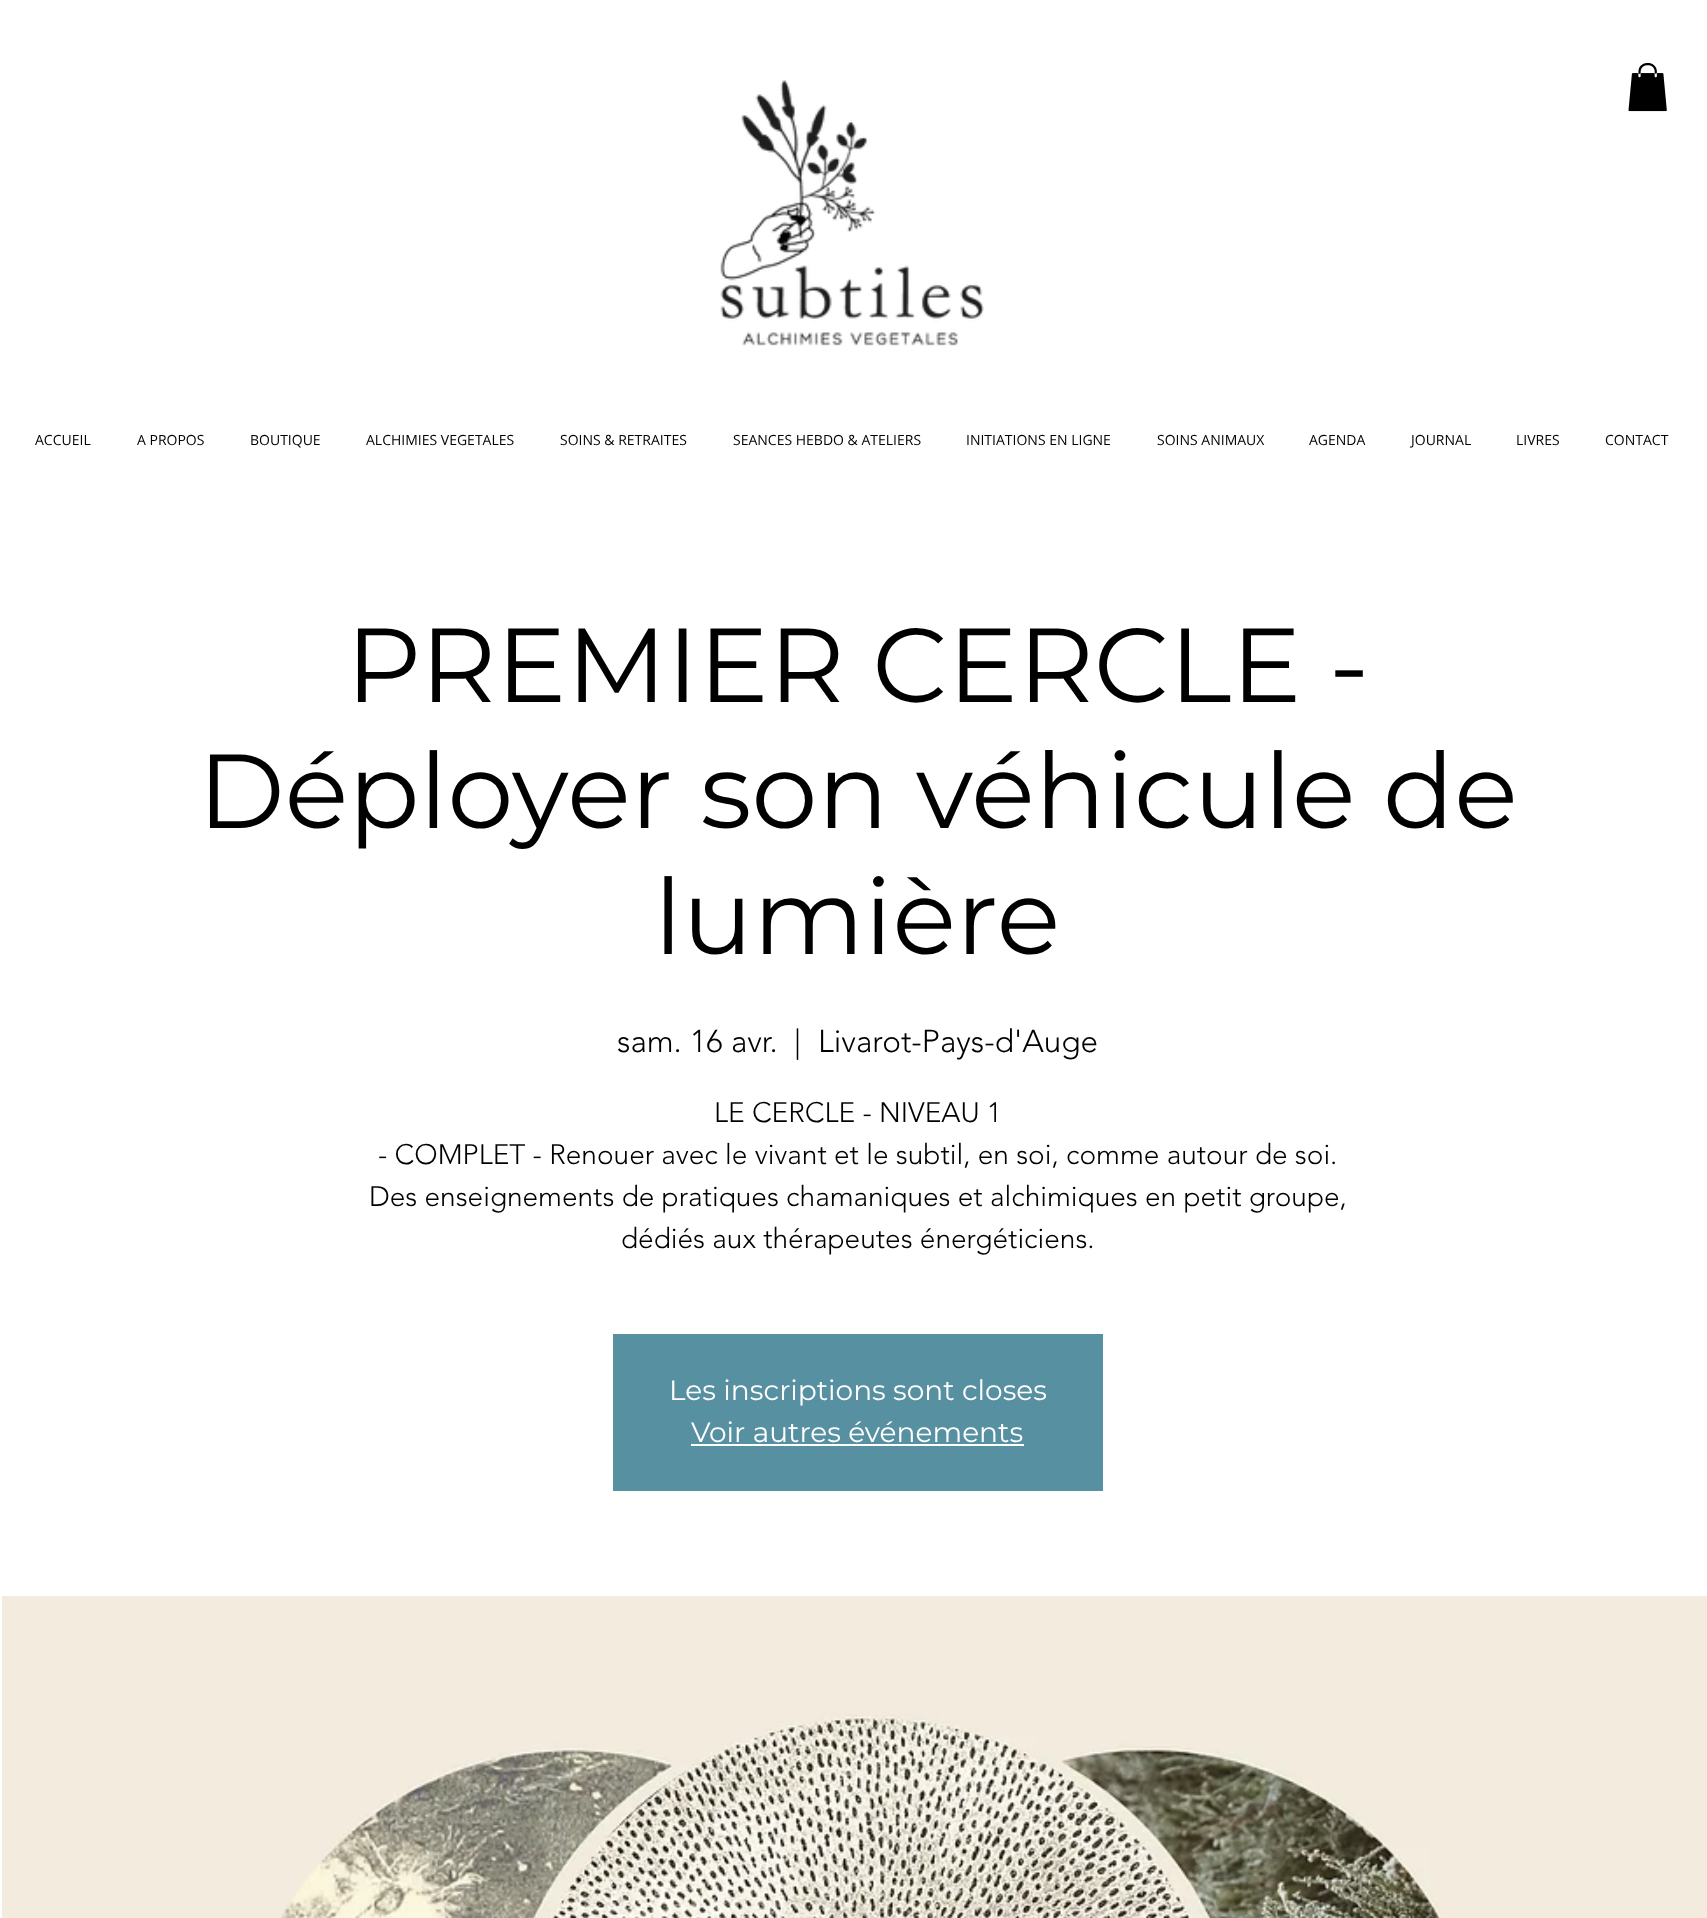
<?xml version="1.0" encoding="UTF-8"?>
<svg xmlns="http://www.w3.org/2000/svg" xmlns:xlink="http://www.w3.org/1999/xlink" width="1707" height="1918">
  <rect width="100%" height="100%" fill="#ffffff" />
  <image x="720" y="80" width="264" height="266" xlink:href="image1.png" />
  <image x="1628" y="63" width="39" height="49" xlink:href="image2.png" />
  <rect x="613" y="1334" width="490" height="157" fill="#5790a1" />
  <rect x="691" y="1444" width="333" height="2" fill="#ffffff" />
  <image x="2" y="1596" width="1705" height="322" xlink:href="image3.png" />
  <text x="35" y="445" style="font-family: Open Sans; font-size: 14px; fill: #000000">ACCUEIL</text>
  <text x="137" y="445" style="font-family: Open Sans; font-size: 14px; fill: #000000">A PROPOS</text>
  <text x="250" y="445" style="font-family: Open Sans; font-size: 14px; fill: #000000">BOUTIQUE</text>
  <text x="366" y="445" style="font-family: Open Sans; font-size: 14px; fill: #000000">ALCHIMIES VEGETALES</text>
  <text x="560" y="445" style="font-family: Open Sans; font-size: 14px; fill: #000000">SOINS &amp; RETRAITES</text>
  <text x="733" y="445" style="font-family: Open Sans; font-size: 14px; fill: #000000">SEANCES HEBDO &amp; ATELIERS</text>
  <text x="966" y="445" style="font-family: Open Sans; font-size: 14px; fill: #000000">INITIATIONS EN LIGNE</text>
  <text x="1157" y="445" style="font-family: Open Sans; font-size: 14px; fill: #000000">SOINS ANIMAUX</text>
  <text x="1309" y="445" style="font-family: Open Sans; font-size: 14px; fill: #000000">AGENDA</text>
  <text x="1411" y="445" style="font-family: Open Sans; font-size: 14px; fill: #000000">JOURNAL</text>
  <text x="1516" y="445" style="font-family: Open Sans; font-size: 14px; fill: #000000">LIVRES</text>
  <text x="1605" y="445" style="font-family: Open Sans; font-size: 14px; fill: #000000">CONTACT</text>
  <text x="346" y="702" style="font-family: Montserrat; font-size: 105px; fill: #000000">PREMIER CERCLE -</text>
  <text x="198" y="828" style="font-family: Montserrat; font-size: 105px; fill: #000000">Déployer son véhicule de</text>
  <text x="654" y="954" style="font-family: Montserrat; font-size: 105px; fill: #000000">lumière</text>
  <text x="617" y="1052" style="font-family: 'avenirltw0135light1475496'; font-size: 31.5px; font-weight: 300; fill: #000000">sam. 16 avr.</text>
  <text x="794" y="1052" style="font-family: 'avenirltw0135light1475496'; font-size: 31.5px; font-weight: 300; fill: #000000">|</text>
  <text x="818" y="1052" style="font-family: 'avenirltw0135light1475496'; font-size: 31.5px; font-weight: 300; fill: #000000">Livarot-Pays-d'Auge</text>
  <text x="714" y="1122" style="font-family: 'avenirltw0135light1475496'; font-size: 28px; font-weight: 300; fill: #000000">LE CERCLE - NIVEAU 1</text>
  <text x="378" y="1164" style="font-family: 'avenirltw0135light1475496'; font-size: 28px; font-weight: 300; fill: #000000">- COMPLET - Renouer avec le vivant et le subtil, en soi, comme autour de soi.</text>
  <text x="369" y="1206" style="font-family: 'avenirltw0135light1475496'; font-size: 28px; font-weight: 300; fill: #000000">Des enseignements de pratiques chamaniques et alchimiques en petit groupe,</text>
  <text x="621" y="1248" style="font-family: 'avenirltw0135light1475496'; font-size: 28px; font-weight: 300; fill: #000000">dédiés aux thérapeutes énergéticiens.</text>
  <text x="669" y="1400" style="font-family: Montserrat; font-size: 28px; fill: #ffffff">Les inscriptions sont closes</text>
  <text x="691" y="1442" style="font-family: Montserrat; font-size: 28px; fill: #ffffff">Voir autres événements</text>
</svg>
